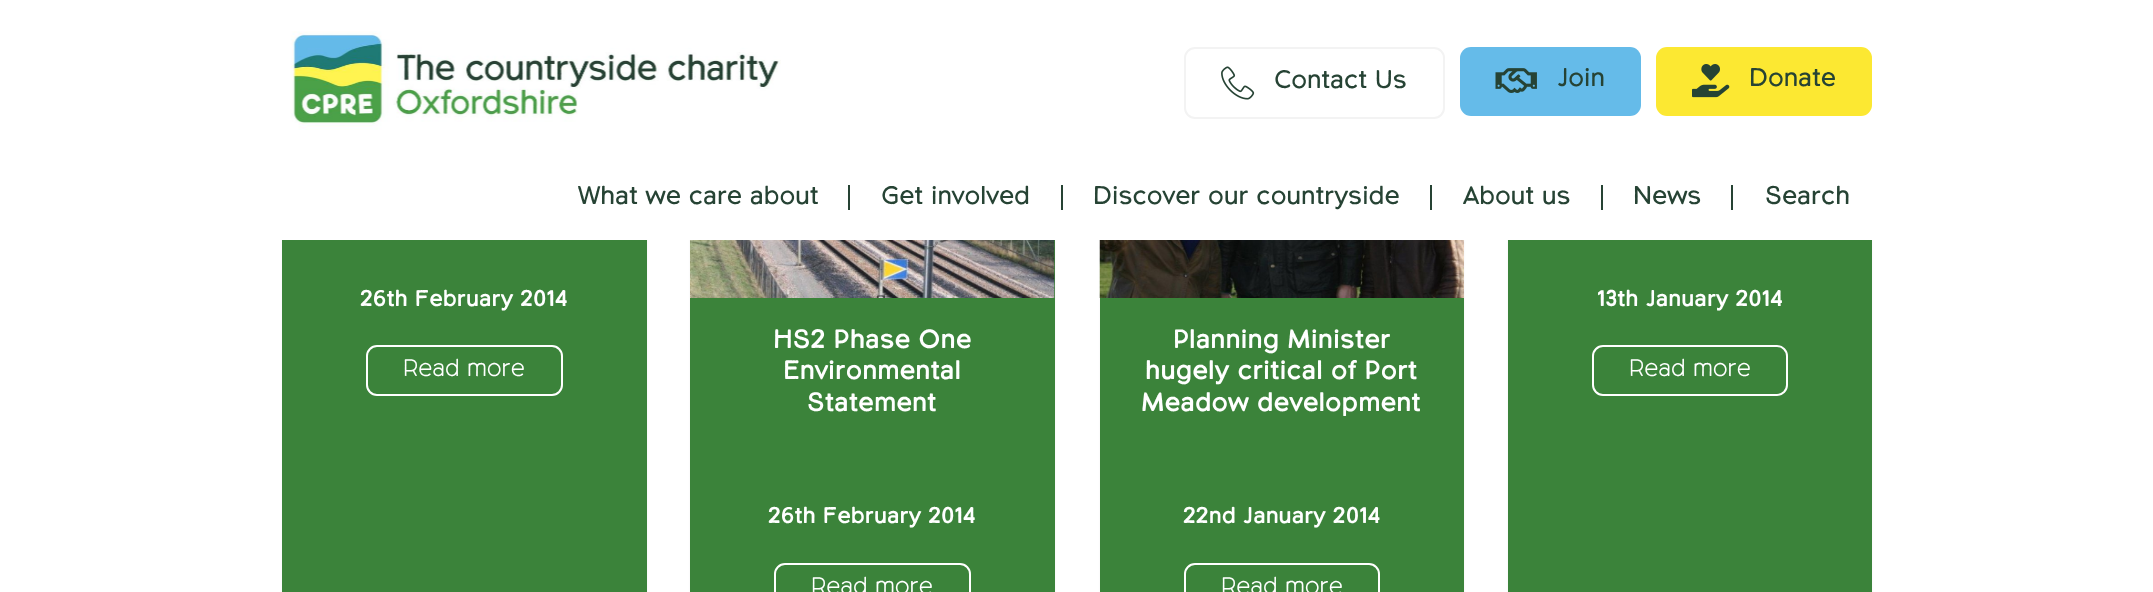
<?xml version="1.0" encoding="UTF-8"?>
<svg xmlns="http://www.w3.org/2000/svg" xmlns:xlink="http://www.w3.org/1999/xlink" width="2153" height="592">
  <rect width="100%" height="100%" fill="#ffffff" />
  <rect x="282" y="87" width="365" height="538" rx="30" fill="#c5c5c5" fill-opacity="0.2" filter="blur(1px)" />
  <rect x="690" y="87" width="365" height="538" rx="30" fill="#c5c5c5" fill-opacity="0.2" filter="blur(1px)" />
  <rect x="1100" y="87" width="364" height="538" rx="30" fill="#c5c5c5" fill-opacity="0.2" filter="blur(1px)" />
  <rect x="1508" y="87" width="364" height="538" rx="30" fill="#c5c5c5" fill-opacity="0.2" filter="blur(1px)" />
  <path d="M 222 0 h 1710 v 228 c 0 6.5 -5.5 12 -12 12 h -1686 c -6.5 0 -12 -5.5 -12 -12 z" fill="#ffffff" />
  <image x="290" y="31" width="491" height="99" xlink:href="image1.png" />
  <rect x="1185" y="48" width="259" height="70" rx="10" fill="none" stroke="#f3f3f3" stroke-width="2" />
  <image x="1221" y="66" width="34" height="34" xlink:href="image2.png" />
  <rect x="1460" y="47" width="181" height="69" rx="11" fill="#65bbe9" />
  <image x="1495" y="68" width="42" height="25" xlink:href="image3.png" />
  <rect x="1656" y="47" width="216" height="69" rx="11" fill="#fce832" />
  <image x="1692" y="64" width="38" height="34" xlink:href="image4.png" />
  <rect x="848" y="185" width="2" height="25" fill="#264334" />
  <rect x="1061" y="185" width="2" height="25" fill="#264334" />
  <rect x="1430" y="185" width="2" height="25" fill="#264334" />
  <rect x="1601" y="185" width="2" height="25" fill="#264334" />
  <rect x="1731" y="185" width="2" height="25" fill="#264334" />
  <rect x="282" y="240" width="365" height="352" fill="#3b833a" />
  <rect x="367" y="346" width="195" height="49" rx="10" fill="none" stroke="#ffffff" stroke-width="2" />
  <rect x="690" y="240" width="365" height="352" fill="#3b833a" />
  <image x="690" y="240" width="365" height="58" xlink:href="image5.png" />
  <rect x="775" y="564" width="195" height="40" rx="10" fill="none" stroke="#ffffff" stroke-width="2" />
  <rect x="1100" y="298" width="364" height="294" fill="#3b833a" />
  <image x="1099" y="240" width="365" height="58" xlink:href="image6.png" />
  <rect x="1185" y="564" width="194" height="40" rx="10" fill="none" stroke="#ffffff" stroke-width="2" />
  <rect x="1508" y="240" width="364" height="352" fill="#3b833a" />
  <rect x="1593" y="346" width="194" height="49" rx="10" fill="none" stroke="#ffffff" stroke-width="2" />
  <text x="1274" y="88" style="font-family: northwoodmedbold; font-size: 25.5px; fill: #264334">Contact Us</text>
  <text x="1557" y="86" style="font-family: northwoodmedbold; font-size: 25.5px; fill: #264334">Join</text>
  <text x="1749" y="86" style="font-family: northwoodmedbold; font-size: 25.5px; fill: #264334">Donate</text>
  <text x="578" y="204" style="font-family: northwoodmedbold; font-size: 25.5px; fill: #264334">What we care about</text>
  <text x="881" y="204" style="font-family: northwoodmedbold; font-size: 25.5px; fill: #264334">Get involved</text>
  <text x="1093" y="204" style="font-family: northwoodmedbold; font-size: 25.5px; fill: #264334">Discover our countryside</text>
  <text x="1463" y="204" style="font-family: northwoodmedbold; font-size: 25.5px; fill: #264334">About us</text>
  <text x="1633" y="204" style="font-family: northwoodmedbold; font-size: 25.5px; fill: #264334">News</text>
  <text x="1765" y="204" style="font-family: northwoodmedbold; font-size: 25.5px; fill: #264334">Search</text>
  <text x="360" y="306" style="font-family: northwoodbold; font-size: 22.5px; fill: #ffffff">26th February 2014</text>
  <text x="403" y="376" style="font-family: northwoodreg; font-size: 24px; fill: #ffffff">Read more</text>
  <text x="773" y="348" style="font-family: northwoodbold; font-size: 26.25px; fill: #ffffff">HS2 Phase One</text>
  <text x="783" y="379" style="font-family: northwoodbold; font-size: 26.25px; fill: #ffffff">Environmental</text>
  <text x="807" y="411" style="font-family: northwoodbold; font-size: 26.25px; fill: #ffffff">Statement</text>
  <text x="768" y="523" style="font-family: northwoodbold; font-size: 22.5px; fill: #ffffff">26th February 2014</text>
  <text x="811" y="594" style="font-family: northwoodreg; font-size: 24px; fill: #ffffff">Read more</text>
  <text x="1173" y="348" style="font-family: northwoodbold; font-size: 26.25px; fill: #ffffff">Planning Minister</text>
  <text x="1145" y="379" style="font-family: northwoodbold; font-size: 26.25px; fill: #ffffff">hugely critical of Port</text>
  <text x="1141" y="411" style="font-family: northwoodbold; font-size: 26.25px; fill: #ffffff">Meadow development</text>
  <text x="1183" y="523" style="font-family: northwoodbold; font-size: 22.5px; fill: #ffffff">22nd January 2014</text>
  <text x="1221" y="594" style="font-family: northwoodreg; font-size: 24px; fill: #ffffff">Read more</text>
  <text x="1597" y="306" style="font-family: northwoodbold; font-size: 22.5px; fill: #ffffff">13th January 2014</text>
  <text x="1629" y="376" style="font-family: northwoodreg; font-size: 24px; fill: #ffffff">Read more</text>
</svg>
